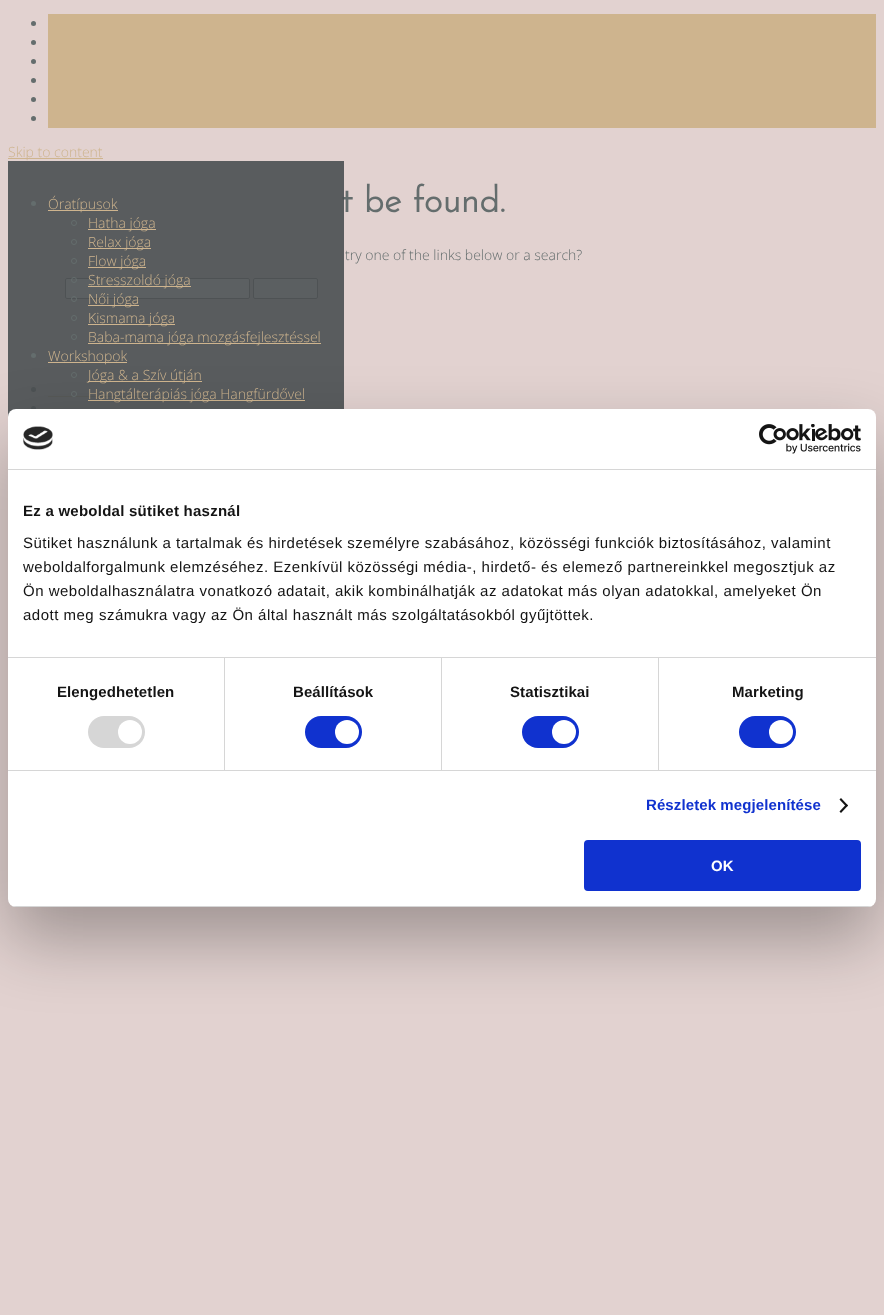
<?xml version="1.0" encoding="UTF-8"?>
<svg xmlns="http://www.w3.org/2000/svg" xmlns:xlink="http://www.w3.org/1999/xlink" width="884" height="1315">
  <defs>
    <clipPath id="clip1"><rect x="8" y="409" width="868" height="498" rx="8" /></clipPath>
  </defs>
  <rect width="100%" height="100%" fill="#e2d2d0" />
  <rect x="48" y="14" width="828" height="114" fill="#ceb48e" />
  <circle cx="33.5" cy="23.5" r="2.5" fill="#646d6d" />
  <circle cx="33.5" cy="42.5" r="2.5" fill="#646d6d" />
  <circle cx="33.5" cy="61.5" r="2.5" fill="#646d6d" />
  <circle cx="33.5" cy="80.5" r="2.5" fill="#646d6d" />
  <circle cx="33.5" cy="99.5" r="2.5" fill="#646d6d" />
  <circle cx="33.5" cy="118.5" r="2.5" fill="#646d6d" />
  <rect x="8" y="158" width="95" height="1" fill="#ceb48e" />
  <rect x="65.5" y="278.5" width="184" height="20" rx="1.5" fill="#ffffff" stroke="#767676" />
  <rect x="253.5" y="278.5" width="64" height="20" rx="1.5" fill="#efefef" stroke="#767676" />
  <circle cx="33.5" cy="389.5" r="2.5" fill="#646d6d" />
  <rect x="48" y="396" width="114" height="1" fill="#ceb48e" />
  <circle cx="33.5" cy="408.5" r="2.5" fill="#646d6d" />
  <text x="8" y="157" style="font-family: Open Sans; font-size: 14px; font-weight: 300; fill: #ceb48e">Skip to content</text>
  <text x="341" y="212" style="font-family: Josefin Sans; font-size: 36px; font-weight: bold; fill: #646d6d">t be found.</text>
  <rect x="8" y="161" width="336" height="256" fill="#4a4f51" fill-opacity="0.9" />
  <rect x="88" y="400" width="217" height="1" fill="#ceb48e" />
  <text x="88" y="399" style="font-family: Open Sans; font-size: 14px; font-weight: 300; fill: #ceb48e">Hangtálterápiás jóga Hangfürdővel</text>
  <circle cx="74" cy="394" r="2.5" fill="none" stroke="#646d6d" />
  <rect x="88" y="381" width="114" height="1" fill="#ceb48e" />
  <text x="88" y="380" style="font-family: Open Sans; font-size: 14px; font-weight: 300; fill: #ceb48e">Jóga &amp; a Szív útján</text>
  <circle cx="74" cy="375" r="2.5" fill="none" stroke="#646d6d" />
  <rect x="48" y="362" width="79" height="1" fill="#ceb48e" />
  <text x="48" y="361" style="font-family: Open Sans; font-size: 14px; font-weight: 300; fill: #ceb48e">Workshopok</text>
  <circle cx="33.5" cy="355.5" r="2.5" fill="#646d6d" />
  <rect x="88" y="343" width="233" height="1" fill="#ceb48e" />
  <text x="88" y="342" style="font-family: Open Sans; font-size: 14px; font-weight: 300; fill: #ceb48e">Baba-mama jóga mozgásfejlesztéssel</text>
  <circle cx="74" cy="337" r="2.5" fill="none" stroke="#646d6d" />
  <rect x="88" y="324" width="87" height="1" fill="#ceb48e" />
  <text x="88" y="323" style="font-family: Open Sans; font-size: 14px; font-weight: 300; fill: #ceb48e">Kismama jóga</text>
  <circle cx="74" cy="318" r="2.5" fill="none" stroke="#646d6d" />
  <rect x="88" y="305" width="51" height="1" fill="#ceb48e" />
  <text x="88" y="304" style="font-family: Open Sans; font-size: 14px; font-weight: 300; fill: #ceb48e">Női jóga</text>
  <circle cx="74" cy="299" r="2.5" fill="none" stroke="#646d6d" />
  <rect x="88" y="286" width="103" height="1" fill="#ceb48e" />
  <text x="88" y="285" style="font-family: Open Sans; font-size: 14px; font-weight: 300; fill: #ceb48e">Stresszoldó jóga</text>
  <circle cx="74" cy="280" r="2.5" fill="none" stroke="#646d6d" />
  <rect x="88" y="267" width="58" height="1" fill="#ceb48e" />
  <text x="88" y="266" style="font-family: Open Sans; font-size: 14px; font-weight: 300; fill: #ceb48e">Flow jóga</text>
  <circle cx="74" cy="261" r="2.5" fill="none" stroke="#646d6d" />
  <rect x="88" y="248" width="63" height="1" fill="#ceb48e" />
  <text x="88" y="247" style="font-family: Open Sans; font-size: 14px; font-weight: 300; fill: #ceb48e">Relax jóga</text>
  <circle cx="74" cy="242" r="2.5" fill="none" stroke="#646d6d" />
  <rect x="88" y="229" width="68" height="1" fill="#ceb48e" />
  <text x="88" y="228" style="font-family: Open Sans; font-size: 14px; font-weight: 300; fill: #ceb48e">Hatha jóga</text>
  <circle cx="74" cy="223" r="2.5" fill="none" stroke="#646d6d" />
  <rect x="48" y="210" width="70" height="1" fill="#ceb48e" />
  <text x="48" y="209" style="font-family: Open Sans; font-size: 14px; font-weight: 300; fill: #ceb48e">Óratípusok</text>
  <circle cx="33.5" cy="203.5" r="2.5" fill="#646d6d" />
  <text x="345" y="260" style="font-family: Open Sans; font-size: 14px; font-weight: 300; fill: #646d6d">try one of the links below or a search?</text>
  <rect x="8" y="441" width="868" height="498" rx="8" fill="#000000" fill-opacity="0.3" filter="blur(34px)" />
  <rect x="8" y="409" width="868" height="498" rx="8" fill="#ffffff" />
  <rect x="8" y="469" width="868" height="1" fill="#d6d6d6" />
  <image x="23" y="426" width="30" height="24" xlink:href="image1.png" />
  <image x="759" y="424" width="102" height="30" xlink:href="image2.png" />
  <rect x="8" y="657" width="868" height="1" fill="#d6d6d6" />
  <text x="23" y="516" style="font-family: Liberation Sans; font-size: 15px; font-weight: bold; letter-spacing: 0.25px; fill: #141414">Ez a weboldal sütiket használ</text>
  <text x="23" y="548" style="font-family: Liberation Sans; font-size: 15px; letter-spacing: 0.5px; fill: #141414">Sütiket használunk a tartalmak és hirdetések személyre szabásához, közösségi funkciók biztosításához, valamint</text>
  <text x="23" y="572" style="font-family: Liberation Sans; font-size: 15px; letter-spacing: 0.5px; fill: #141414">weboldalforgalmunk elemzéséhez. Ezenkívül közösségi média-, hirdető- és elemező partnereinkkel megosztjuk az</text>
  <text x="23" y="596" style="font-family: Liberation Sans; font-size: 15px; letter-spacing: 0.5px; fill: #141414">Ön weboldalhasználatra vonatkozó adatait, akik kombinálhatják az adatokat más olyan adatokkal, amelyeket Ön</text>
  <text x="23" y="620" style="font-family: Liberation Sans; font-size: 15px; letter-spacing: 0.5px; fill: #141414">adott meg számukra vagy az Ön által használt más szolgáltatásokból gyűjtöttek.</text>
  <rect x="8" y="770" width="868" height="1" fill="#d6d6d6" />
  <rect x="224" y="658" width="1" height="112" fill="#d6d6d6" />
  <text x="57" y="697" style="font-family: Liberation Sans; font-size: 15px; font-weight: bold; letter-spacing: 0.1px; fill: #141414">Elengedhetetlen</text>
  <rect x="88" y="716" width="57" height="32" rx="16" fill="#d6d6d6" />
  <circle cx="130" cy="732" r="12" fill="#ffffff" />
  <rect x="441" y="658" width="1" height="112" fill="#d6d6d6" />
  <text x="293" y="697" style="font-family: Liberation Sans; font-size: 15px; font-weight: bold; letter-spacing: 0.1px; fill: #141414">Beállítások</text>
  <rect x="305" y="716" width="57" height="32" rx="16" fill="#1032cf" />
  <circle cx="347" cy="732" r="12" fill="#ffffff" />
  <rect x="658" y="658" width="1" height="112" fill="#d6d6d6" />
  <text x="510" y="697" style="font-family: Liberation Sans; font-size: 15px; font-weight: bold; letter-spacing: 0.1px; fill: #141414">Statisztikai</text>
  <rect x="522" y="716" width="57" height="32" rx="16" fill="#1032cf" />
  <circle cx="564" cy="732" r="12" fill="#ffffff" />
  <text x="732" y="697" style="font-family: Liberation Sans; font-size: 15px; font-weight: bold; letter-spacing: 0.1px; fill: #141414">Marketing</text>
  <rect x="739" y="716" width="57" height="32" rx="16" fill="#1032cf" />
  <circle cx="781" cy="732" r="12" fill="#ffffff" />
  <text x="646" y="810" style="font-family: Liberation Sans; font-size: 15px; font-weight: bold; letter-spacing: 0.1px; fill: #1032cf">Részletek megjelenítése</text>
  <path d="M 841 798 l 7 7.5 l -1.5 1.5 l -7 -7.5 z" fill="#141414" />
  <path d="M 846.5 804 l 1.5 1.5 l -7 7.5 l -1.5 -1.5 z" fill="#141414" />
  <g clip-path="url(#clip1)">
    <rect x="8" y="906" width="868" height="1" fill="#d6d6d6" />
  </g>
  <rect x="585" y="841" width="275" height="49" rx="3" fill="#1032cf" stroke="#1032cf" stroke-width="2" />
  <text x="711" y="871" style="font-family: Liberation Sans; font-size: 15px; font-weight: bold; fill: #ffffff">OK</text>
</svg>
